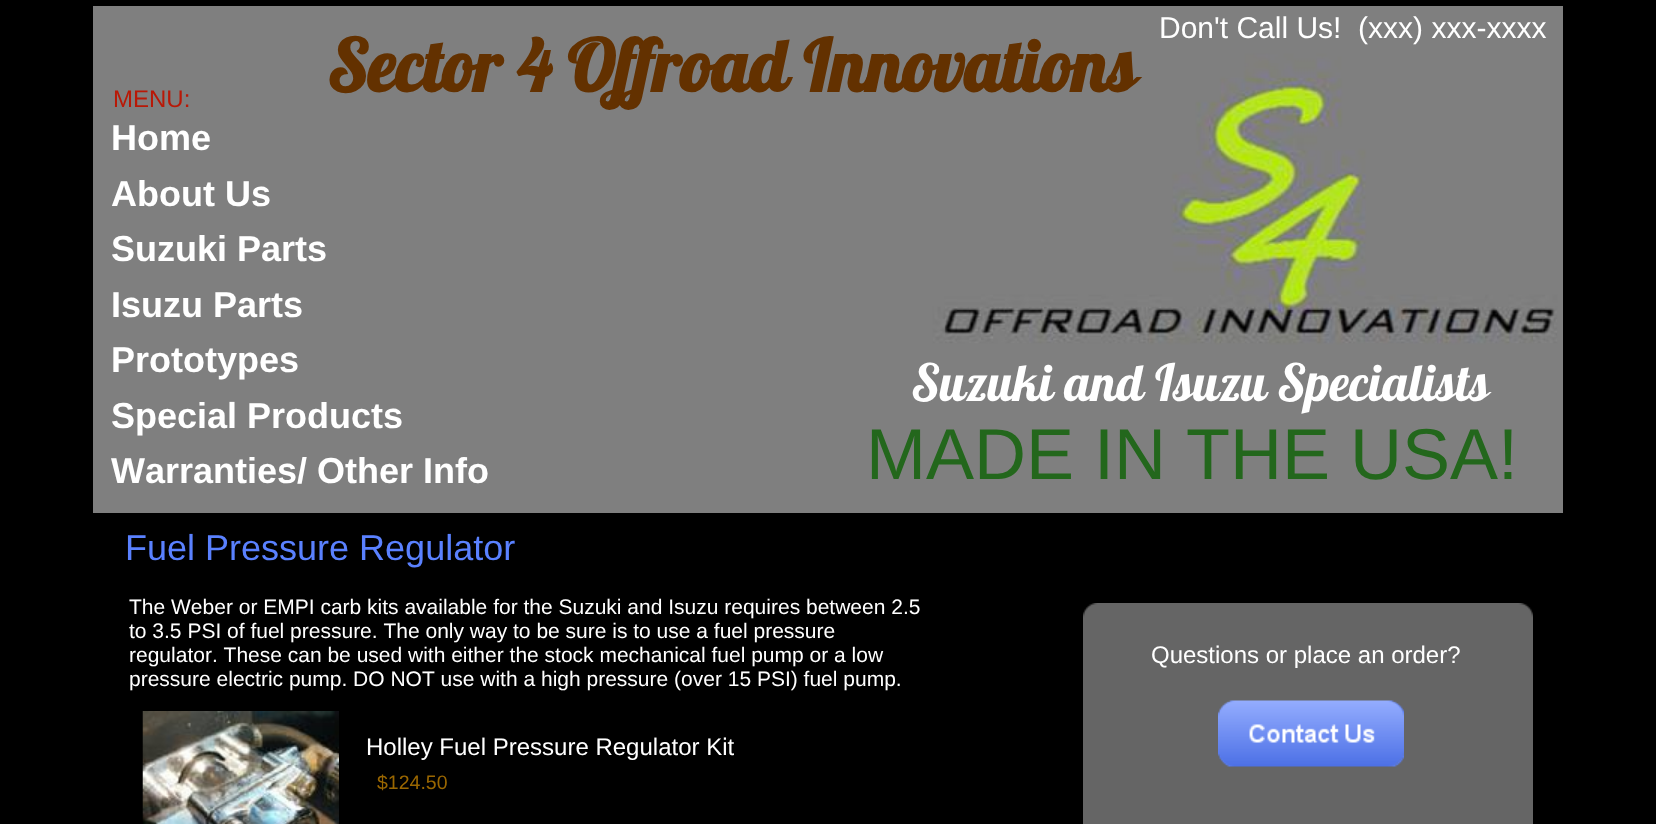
<?xml version="1.0" encoding="UTF-8"?>
<svg xmlns="http://www.w3.org/2000/svg" xmlns:xlink="http://www.w3.org/1999/xlink" width="1656" height="824">
  <style>*{font-kerning:none!important;font-variant-ligatures:none!important}</style>
  <rect width="100%" height="100%" fill="#000000" />
  <image x="93" y="6" width="1470" height="507" xlink:href="image1.png" />
  <image x="1083" y="603" width="15" height="15" xlink:href="image2.png" />
  <rect x="1098" y="603" width="420" height="15" fill="#656565" />
  <image x="1518" y="603" width="15" height="15" xlink:href="image3.png" />
  <rect x="1083" y="618" width="450" height="206" fill="#656565" />
  <image x="142" y="711" width="197" height="113" xlink:href="image4.png" />
  <image x="1218" y="700" width="186" height="67" xlink:href="image5.png" />
  <text x="1159" y="38" style="font-family: Liberation Sans; font-size: 30px; fill: #ffffff" xml:space="preserve">Don't Call Us!  (xxx) xxx-xxxx</text>
  <text x="113" y="107" style="font-family: Liberation Sans; font-size: 24px; fill: #b91806">MENU:</text>
  <text x="327" y="92" style="font-family: Lobster; font-size: 72px; font-weight: bold; fill: #633100">Sector 4 Offroad Innovations</text>
  <text x="111" y="150" style="font-family: Liberation Sans; font-size: 36px; font-weight: bold; fill: #ffffff">Home</text>
  <text x="111" y="206" style="font-family: Liberation Sans; font-size: 36px; font-weight: bold; fill: #ffffff">About Us</text>
  <text x="111" y="261" style="font-family: Liberation Sans; font-size: 36px; font-weight: bold; fill: #ffffff">Suzuki Parts</text>
  <text x="111" y="317" style="font-family: Liberation Sans; font-size: 36px; font-weight: bold; fill: #ffffff">Isuzu Parts</text>
  <text x="111" y="372" style="font-family: Liberation Sans; font-size: 36px; font-weight: bold; fill: #ffffff">Prototypes</text>
  <text x="111" y="428" style="font-family: Liberation Sans; font-size: 36px; font-weight: bold; fill: #ffffff">Special Products</text>
  <text x="111" y="483" style="font-family: Liberation Sans; font-size: 36px; font-weight: bold; fill: #ffffff">Warranties/ Other Info</text>
  <text x="911" y="401" style="font-family: Lobster; font-size: 51px; fill: #ffffff">Suzuki and Isuzu</text>
  <text x="1277" y="401" style="font-family: Lobster; font-size: 51px; fill: #ffffff">Specialists</text>
  <text x="866" y="479" style="font-family: Liberation Sans; font-size: 72px; fill: #23671c">MADE IN THE USA!</text>
  <text x="125" y="560" style="font-family: Liberation Sans; font-size: 36px; fill: #5a81ff">Fuel Pressure Regulator</text>
  <text x="129" y="614" style="font-family: Liberation Sans; font-size: 21px; fill: #ffffff">The Weber or EMPI carb kits available for the Suzuki and Isuzu requires between 2.5</text>
  <text x="129" y="638" style="font-family: Liberation Sans; font-size: 21px; fill: #ffffff">to 3.5 PSI of fuel pressure. The only way to be sure is to use a fuel pressure</text>
  <text x="129" y="662" style="font-family: Liberation Sans; font-size: 21px; fill: #ffffff">regulator. These can be used with either the stock mechanical fuel pump or a low</text>
  <text x="129" y="686" style="font-family: Liberation Sans; font-size: 21px; fill: #ffffff">pressure electric pump. DO NOT use with a high pressure (over 15 PSI) fuel pump.</text>
  <text x="1151" y="663" style="font-family: Liberation Sans; font-size: 24px; fill: #ffffff">Questions or place an order?</text>
  <text x="366" y="755" style="font-family: Liberation Sans; font-size: 24px; fill: #ffffff">Holley Fuel Pressure Regulator Kit</text>
  <text x="377" y="789" style="font-family: Liberation Sans; font-size: 19.5px; fill: #996600">$124.50</text>
</svg>
